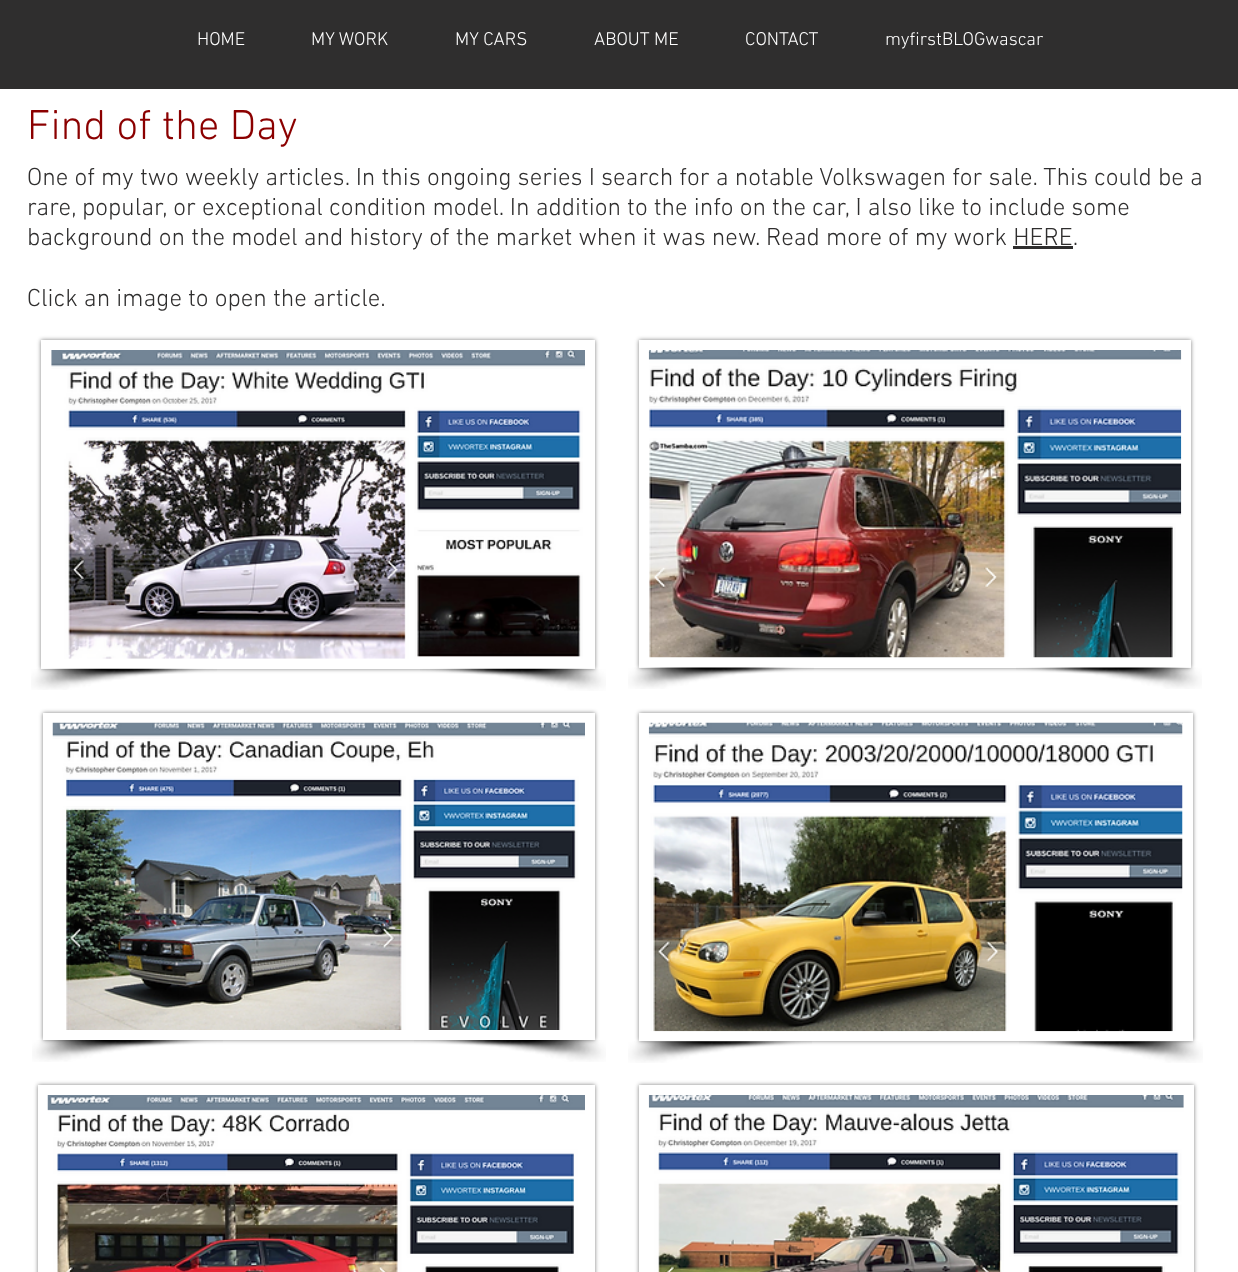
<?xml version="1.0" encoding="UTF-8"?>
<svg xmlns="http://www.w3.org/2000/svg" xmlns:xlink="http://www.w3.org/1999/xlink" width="1238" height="1272">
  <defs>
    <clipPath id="clip1"><path d="M 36 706 h 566 v 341 h -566 z m 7 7 h 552 v 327 h -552 z" clip-rule="evenodd" /></clipPath>
    <clipPath id="clip2"><path d="M 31 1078 h 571 v 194 h -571 z m 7 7 h 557 v 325 h -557 z" clip-rule="evenodd" /></clipPath>
  </defs>
  <rect width="100%" height="100%" fill="#ffffff" />
  <rect width="1238" height="89" fill="#2f2e2e" />
  <rect x="1013" y="246" width="60" height="3" fill="#2f2e2e" />
  <rect x="41" y="340" width="554" height="329" fill="#000000" fill-opacity="0.5" filter="blur(2px)" />
  <rect x="41" y="340" width="554" height="329" fill="#ffffff" />
  <image x="51" y="350" width="534" height="309" xlink:href="image1.png" />
  <image x="31" y="668" width="186" height="22" xlink:href="image2.png" />
  <image x="420" y="668" width="186" height="23" xlink:href="image3.png" />
  <rect x="639" y="340" width="552" height="328" fill="#000000" fill-opacity="0.5" filter="blur(2px)" />
  <rect x="639" y="340" width="552" height="328" fill="#ffffff" />
  <image x="648" y="350" width="534" height="308" xlink:href="image4.png" />
  <image x="628" y="667" width="186" height="22" xlink:href="image5.png" />
  <image x="1016" y="667" width="186" height="22" xlink:href="image6.png" />
  <g clip-path="url(#clip1)">
    <rect x="43" y="713" width="552" height="327" fill="#000000" fill-opacity="0.5" filter="blur(2px)" />
  </g>
  <image x="52" y="722" width="533" height="308" xlink:href="image7.png" />
  <image x="32" y="1040" width="191" height="22" xlink:href="image8.png" />
  <image x="414" y="1040" width="192" height="22" xlink:href="image9.png" />
  <rect x="639" y="713" width="554" height="328" fill="#000000" fill-opacity="0.5" filter="blur(2px)" />
  <rect x="639" y="713" width="554" height="328" fill="#ffffff" />
  <image x="648" y="722" width="535" height="310" xlink:href="image10.png" />
  <image x="628" y="1041" width="184" height="22" xlink:href="image11.png" />
  <image x="1019" y="1041" width="184" height="22" xlink:href="image12.png" />
  <g clip-path="url(#clip2)">
    <rect x="38" y="1085" width="557" height="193" fill="#000000" fill-opacity="0.5" filter="blur(2px)" />
  </g>
  <image x="47" y="1095" width="538" height="177" xlink:href="image13.png" />
  <rect x="639" y="1085" width="555" height="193" fill="#000000" fill-opacity="0.5" filter="blur(2px)" />
  <rect x="639" y="1085" width="555" height="187" fill="#ffffff" />
  <image x="648" y="1095" width="536" height="177" xlink:href="image14.png" />
  <text x="197" y="45" style="font-family: 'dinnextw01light'; font-size: 18.75px; font-weight: 300; fill: #ffffff">HOME</text>
  <text x="311" y="45" style="font-family: 'dinnextw01light'; font-size: 18.75px; font-weight: 300; fill: #ffffff">MY WORK</text>
  <text x="455" y="45" style="font-family: 'dinnextw01light'; font-size: 18.75px; font-weight: 300; fill: #ffffff">MY CARS</text>
  <text x="594" y="45" style="font-family: 'dinnextw01light'; font-size: 18.75px; font-weight: 300; fill: #ffffff">ABOUT ME</text>
  <text x="745" y="45" style="font-family: 'dinnextw01light'; font-size: 18.75px; font-weight: 300; fill: #ffffff">CONTACT</text>
  <text x="885" y="45" style="font-family: 'dinnextw01light'; font-size: 18.75px; font-weight: 300; fill: #ffffff">myfirstBLOGwascar</text>
  <text x="27" y="139" style="font-family: 'dinnextw01light'; font-size: 42.5px; font-weight: 300; fill: #8b0000">Find of the Day</text>
  <text x="27" y="185" style="font-family: 'dinnextw01light'; font-size: 25px; font-weight: 300; fill: #2f2e2e">One of my two weekly articles. In this ongoing series I search for a notable Volkswagen for sale. This could be a</text>
  <text x="27" y="215" style="font-family: 'dinnextw01light'; font-size: 25px; font-weight: 300; fill: #2f2e2e">rare, popular, or exceptional condition model. In addition to the info on the car, I also like to include some</text>
  <text x="27" y="245" style="font-family: 'dinnextw01light'; font-size: 25px; font-weight: 300; fill: #2f2e2e">background on the model and history of the market when it was new. Read more of my work HERE.</text>
  <text x="27" y="306" style="font-family: 'dinnextw01light'; font-size: 25px; font-weight: 300; fill: #2f2e2e">Click an image to open the article.</text>
</svg>
